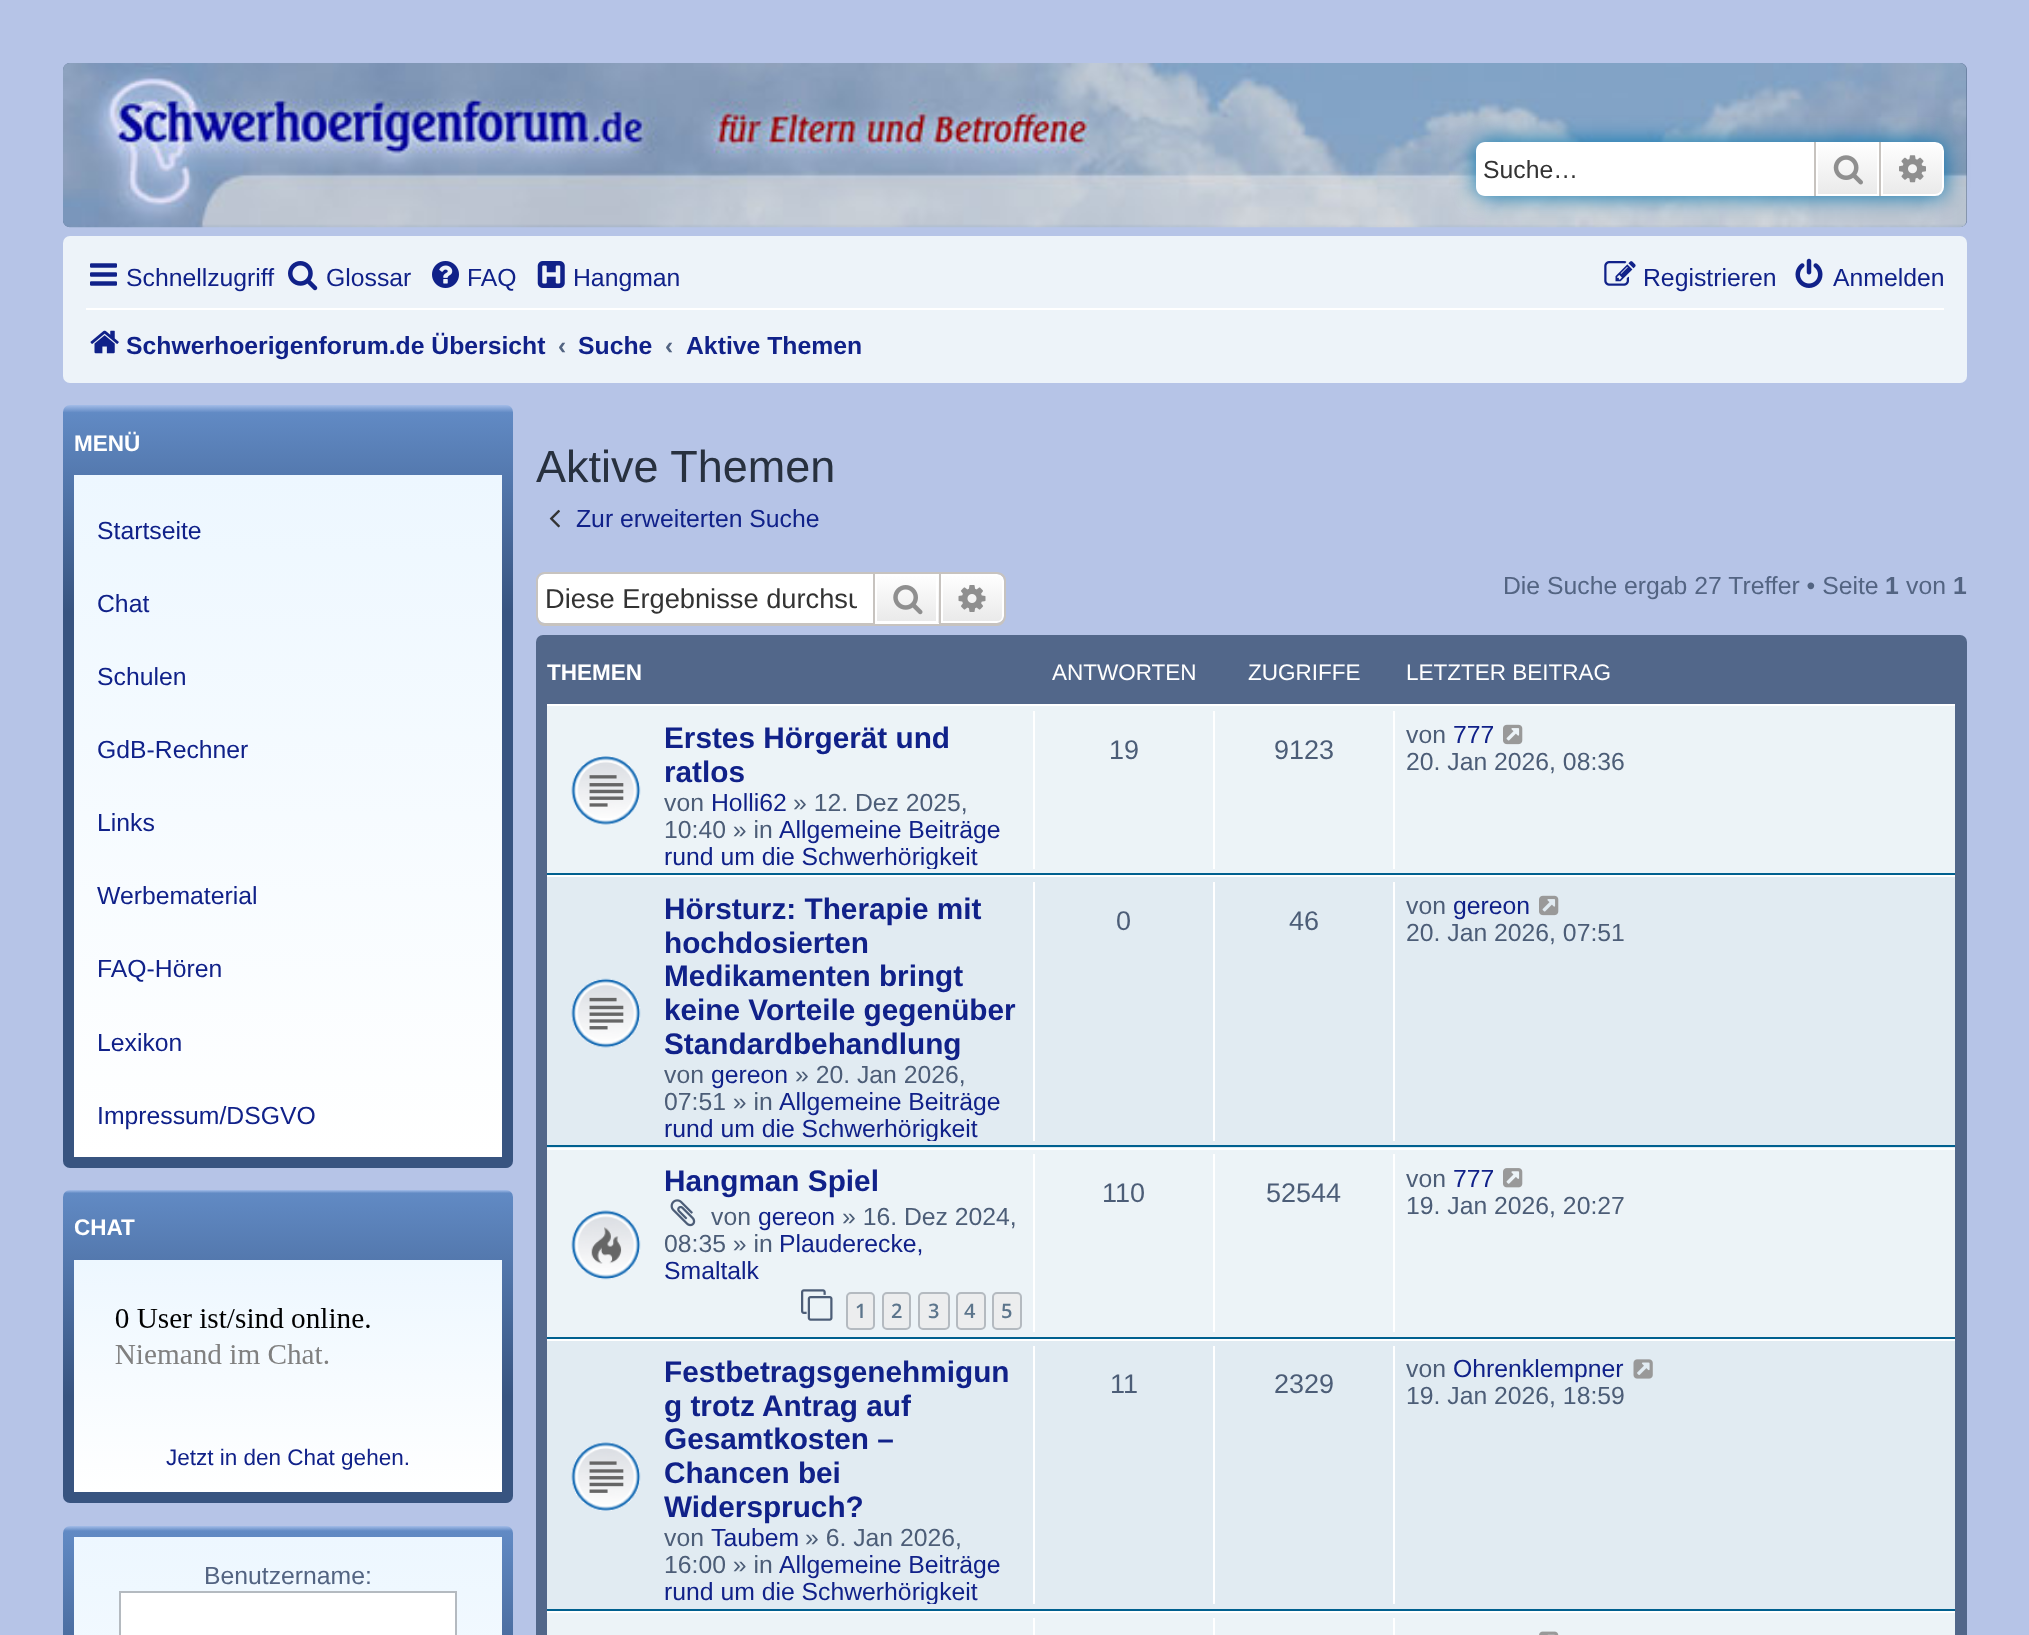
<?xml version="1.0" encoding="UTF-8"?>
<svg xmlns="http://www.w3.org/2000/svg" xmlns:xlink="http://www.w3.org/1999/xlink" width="2029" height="1635">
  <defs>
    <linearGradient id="g1" gradientUnits="userSpaceOnUse" x1="1847" y1="142" x2="1847" y2="196"><stop offset="0" stop-color="#ffffff" /><stop offset="1" stop-color="#e9e9e9" /></linearGradient>
    <linearGradient id="g2" gradientUnits="userSpaceOnUse" x1="1913" y1="142" x2="1913" y2="196"><stop offset="0" stop-color="#ffffff" /><stop offset="1" stop-color="#e9e9e9" /></linearGradient>
    <linearGradient id="g3" gradientUnits="userSpaceOnUse" x1="288" y1="405" x2="288" y2="1168"><stop offset="0" stop-color="#a3bce8" /><stop offset="0.01" stop-color="#618ac4" /><stop offset="0.27" stop-color="#385480" /><stop offset="1" stop-color="#385480" /></linearGradient>
    <linearGradient id="g4" gradientUnits="userSpaceOnUse" x1="288" y1="475" x2="288" y2="1157"><stop offset="0" stop-color="#edf7ff" /><stop offset="1" stop-color="#ffffff" /></linearGradient>
    <linearGradient id="g5" gradientUnits="userSpaceOnUse" x1="288" y1="1190" x2="288" y2="1503"><stop offset="0" stop-color="#a3bce8" /><stop offset="0.01" stop-color="#618ac4" /><stop offset="0.66" stop-color="#385480" /><stop offset="1" stop-color="#385480" /></linearGradient>
    <linearGradient id="g6" gradientUnits="userSpaceOnUse" x1="288" y1="1260" x2="288" y2="1492"><stop offset="0" stop-color="#edf7ff" /><stop offset="1" stop-color="#ffffff" /></linearGradient>
    <linearGradient id="g7" gradientUnits="userSpaceOnUse" x1="288" y1="1526" x2="288" y2="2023"><stop offset="0" stop-color="#a3bce8" /><stop offset="0.01" stop-color="#618ac4" /><stop offset="0.42" stop-color="#385480" /><stop offset="1" stop-color="#385480" /></linearGradient>
    <linearGradient id="g8" gradientUnits="userSpaceOnUse" x1="288" y1="1537" x2="288" y2="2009"><stop offset="0" stop-color="#edf7ff" /><stop offset="1" stop-color="#ffffff" /></linearGradient>
    <linearGradient id="g9" gradientUnits="userSpaceOnUse" x1="907" y1="574" x2="907" y2="623"><stop offset="0" stop-color="#ffffff" /><stop offset="1" stop-color="#e9e9e9" /></linearGradient>
    <linearGradient id="g10" gradientUnits="userSpaceOnUse" x1="907" y1="623" x2="907" y2="673"><stop offset="0" stop-color="#ffffff" /><stop offset="1" stop-color="#e9e9e9" /></linearGradient>
    <linearGradient id="g11" gradientUnits="userSpaceOnUse" x1="972" y1="574" x2="972" y2="623"><stop offset="0" stop-color="#ffffff" /><stop offset="1" stop-color="#e9e9e9" /></linearGradient>
    <clipPath id="clip1"><rect x="545" y="583" width="312" height="31" /></clipPath>
    <clipPath id="clip2"><rect x="547" y="711" width="1408" height="158" /></clipPath>
    <clipPath id="clip3"><rect x="547" y="882" width="1408" height="259" /></clipPath>
    <clipPath id="clip4"><rect x="547" y="1346" width="1408" height="258" /></clipPath>
  </defs>
  <rect width="100%" height="100%" fill="#b6c4e7" />
  <rect x="63" y="63" width="1904" height="164" rx="7" fill="#52678a" />
  <image x="63" y="63" width="1904" height="165" xlink:href="image1.png" />
  <rect x="1476" y="142" width="468" height="54" rx="9" fill="#0075b0" filter="blur(11px)" />
  <path d="M 1485 142 h 329 v 54 h -329 c -5 0 -9 -4 -9 -9 v -36 c 0 -5 4 -9 9 -9 z" fill="#ffffff" />
  <rect x="1818" y="144" width="59" height="50" fill="url(#g1)" />
  <rect x="1817" y="143" width="61" height="52" fill="none" stroke="#ffffff" stroke-width="2" />
  <rect x="1879" y="142" width="2" height="54" fill="#c7c3bf" />
  <rect x="1814" y="142" width="2" height="54" fill="#c7c3bf" />
  <image x="1833" y="155" width="30" height="30" xlink:href="image2.png" />
  <path d="M 1882 143 h 53 c 4.5 0 8 3.5 8 8 v 36 c 0 4.5 -3.5 8 -8 8 h -53 z" fill="url(#g2)" stroke="#ffffff" stroke-width="2" />
  <image x="1899" y="155" width="27" height="28" xlink:href="image3.png" />
  <rect x="63" y="236" width="1904" height="147" rx="7" fill="#edf3f9" />
  <image x="90" y="263" width="27" height="23" xlink:href="image4.png" />
  <image x="288" y="261" width="30" height="30" xlink:href="image5.png" />
  <image x="432" y="261" width="27" height="27" xlink:href="image6.png" />
  <image x="537" y="261" width="28" height="27" xlink:href="image7.png" />
  <image x="1604" y="261" width="32" height="25" xlink:href="image8.png" />
  <image x="1795" y="258" width="28" height="30" xlink:href="image9.png" />
  <rect x="86" y="308" width="1858" height="2" fill="#ffffff" />
  <image x="90" y="330" width="29" height="24" xlink:href="image10.png" />
  <rect x="63" y="405" width="450" height="763" rx="7" fill="url(#g3)" />
  <rect x="74" y="475" width="428" height="682" fill="url(#g4)" />
  <rect x="63" y="1190" width="450" height="313" rx="7" fill="url(#g5)" />
  <rect x="74" y="1260" width="428" height="232" fill="url(#g6)" />
  <image x="115" y="1308" width="255" height="56" xlink:href="image11.png" />
  <rect x="63" y="1526" width="450" height="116" rx="7" fill="url(#g7)" />
  <rect x="74" y="1537" width="428" height="98" fill="url(#g8)" />
  <rect x="120" y="1592" width="336" height="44" fill="#ffffff" stroke="#b4bac0" stroke-width="2" />
  <image x="549" y="509" width="11" height="19" xlink:href="image12.png" />
  <path d="M 545 574 h 328 v 49 h -328 c -4 0 -7 -3 -7 -7 v -35 c 0 -4 3 -7 7 -7 z" fill="#ffffff" />
  <path d="M 544 572 h 329 v 54 h -329 c -4 0 -8 -5 -8 -10 v -36 c 0 -4 4 -8 8 -8 z m 0 2 h 329 v 49 h -329 c -3 0 -6 -3 -6 -7 v -36 c 0 -3 3 -6 6 -6 z" fill="#c7c3bf" fill-rule="evenodd" />
  <rect x="877" y="574" width="62" height="49" fill="url(#g9)" />
  <rect x="873" y="623" width="68" height="1" fill="url(#g10)" />
  <rect x="876" y="575" width="61" height="47" fill="none" stroke="#ffffff" stroke-width="2" />
  <rect x="874" y="573" width="66" height="52" fill="none" stroke="#c7c3bf" stroke-width="2" />
  <image x="893" y="585" width="30" height="30" xlink:href="image13.png" />
  <path d="M 942 575 h 55 c 3.5 0 6 2.5 6 6 v 35 c 0 3.5 -2.5 6 -6 6 h -55 z" fill="url(#g11)" stroke="#ffffff" stroke-width="2" />
  <path d="M 940 572 h 57 c 5 0 9 4 9 8 v 36 c 0 5 -4 10 -9 10 h -57 z m 0 2 h 57 c 3 0 7 3 7 6 v 36 c 0 4 -4 7 -7 7 h -57 z" fill="#c7c3bf" fill-rule="evenodd" />
  <image x="958" y="585" width="28" height="27" xlink:href="image14.png" />
  <rect x="536" y="635" width="1431" height="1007" rx="7" fill="#52678a" />
  <rect x="547" y="706" width="1408" height="167" fill="#ecf3f7" />
  <rect x="547" y="704" width="1408" height="2" fill="#ffffff" />
  <rect x="547" y="873" width="1408" height="2" fill="#00608f" />
  <image x="571" y="756" width="70" height="69" xlink:href="image15.png" />
  <rect x="1033" y="711" width="2" height="158" fill="#ffffff" />
  <rect x="1213" y="711" width="2" height="158" fill="#ffffff" />
  <rect x="1393" y="711" width="2" height="158" fill="#ffffff" />
  <image x="1503" y="724" width="20" height="21" xlink:href="image16.png" />
  <rect x="547" y="877" width="1408" height="271" fill="#e1ebf2" />
  <rect x="547" y="875" width="1408" height="2" fill="#ffffff" />
  <rect x="547" y="1145" width="1408" height="2" fill="#00608f" />
  <image x="571" y="978" width="70" height="70" xlink:href="image17.png" />
  <rect x="1033" y="882" width="2" height="259" fill="#ffffff" />
  <rect x="1213" y="882" width="2" height="259" fill="#ffffff" />
  <rect x="1393" y="882" width="2" height="259" fill="#ffffff" />
  <image x="1539" y="895" width="20" height="21" xlink:href="image18.png" />
  <rect x="547" y="1150" width="1408" height="187" fill="#ecf3f7" />
  <rect x="547" y="1148" width="1408" height="2" fill="#ffffff" />
  <rect x="547" y="1337" width="1408" height="2" fill="#00608f" />
  <image x="571" y="1210" width="70" height="70" xlink:href="image19.png" />
  <image x="670" y="1199" width="26" height="28" xlink:href="image20.png" />
  <image x="801" y="1289" width="32" height="32" xlink:href="image21.png" />
  <rect x="847" y="1293" width="27" height="36" rx="4" fill="#ecedee" stroke="#b4bac0" stroke-width="2" />
  <rect x="883" y="1293" width="27" height="36" rx="4" fill="#ecedee" stroke="#b4bac0" stroke-width="2" />
  <rect x="919" y="1293" width="30" height="36" rx="4" fill="#ecedee" stroke="#b4bac0" stroke-width="2" />
  <rect x="957" y="1293" width="28" height="36" rx="4" fill="#ecedee" stroke="#b4bac0" stroke-width="2" />
  <rect x="993" y="1293" width="28" height="36" rx="4" fill="#ecedee" stroke="#b4bac0" stroke-width="2" />
  <rect x="1033" y="1154" width="2" height="178" fill="#ffffff" />
  <rect x="1213" y="1154" width="2" height="178" fill="#ffffff" />
  <rect x="1393" y="1154" width="2" height="178" fill="#ffffff" />
  <image x="1503" y="1168" width="20" height="20" xlink:href="image22.png" />
  <rect x="547" y="1341" width="1408" height="268" fill="#e1ebf2" />
  <rect x="547" y="1339" width="1408" height="2" fill="#ffffff" />
  <rect x="547" y="1609" width="1408" height="2" fill="#00608f" />
  <image x="571" y="1442" width="70" height="69" xlink:href="image23.png" />
  <rect x="1033" y="1346" width="2" height="258" fill="#ffffff" />
  <rect x="1213" y="1346" width="2" height="258" fill="#ffffff" />
  <rect x="1393" y="1346" width="2" height="258" fill="#ffffff" />
  <image x="1633" y="1359" width="20" height="20" xlink:href="image24.png" />
  <rect x="547" y="1613" width="1408" height="22" fill="#ecf3f7" />
  <rect x="547" y="1611" width="1408" height="2" fill="#ffffff" />
  <rect x="1033" y="1618" width="2" height="17" fill="#ffffff" />
  <rect x="1213" y="1618" width="2" height="17" fill="#ffffff" />
  <rect x="1393" y="1618" width="2" height="17" fill="#ffffff" />
  <image x="1539" y="1631" width="20" height="4" xlink:href="image25.png" />
  <text x="1483" y="178" style="font-family: Liberation Sans; font-size: 24.75px; fill: #333333">Suche…</text>
  <text x="126" y="286" style="font-family: Liberation Sans; font-size: 24.75px; fill: #102189">Schnellzugriff</text>
  <text x="326" y="286" style="font-family: Liberation Sans; font-size: 24.75px; fill: #102189">Glossar</text>
  <text x="467" y="286" style="font-family: Liberation Sans; font-size: 24.75px; fill: #102189">FAQ</text>
  <text x="573" y="286" style="font-family: Liberation Sans; font-size: 24.75px; fill: #102189">Hangman</text>
  <text x="1643" y="286" style="font-family: Liberation Sans; font-size: 24.75px; fill: #102189">Registrieren</text>
  <text x="1833" y="286" style="font-family: Liberation Sans; font-size: 24.75px; fill: #102189">Anmelden</text>
  <text x="126" y="354" style="font-family: Liberation Sans; font-size: 24.75px; font-weight: bold; fill: #102189">Schwerhoerigenforum.de Übersicht</text>
  <text x="558" y="354" style="font-family: Liberation Sans; font-size: 24.75px; font-weight: bold; fill: #536482">‹</text>
  <text x="578" y="354" style="font-family: Liberation Sans; font-size: 24.75px; font-weight: bold; fill: #102189">Suche</text>
  <text x="665" y="354" style="font-family: Liberation Sans; font-size: 24.75px; font-weight: bold; fill: #536482">‹</text>
  <text x="686" y="354" style="font-family: Liberation Sans; font-size: 24.75px; font-weight: bold; fill: #102189">Aktive Themen</text>
  <text x="74" y="451" style="font-family: Liberation Sans; font-size: 22.5px; font-weight: bold; fill: #ffffff">MENÜ</text>
  <text x="97" y="539" style="font-family: Liberation Sans; font-size: 24.75px; fill: #102189">Startseite</text>
  <text x="97" y="612" style="font-family: Liberation Sans; font-size: 24.75px; fill: #102189">Chat</text>
  <text x="97" y="685" style="font-family: Liberation Sans; font-size: 24.75px; fill: #102189">Schulen</text>
  <text x="97" y="758" style="font-family: Liberation Sans; font-size: 24.75px; fill: #102189">GdB-Rechner</text>
  <text x="97" y="831" style="font-family: Liberation Sans; font-size: 24.75px; fill: #102189">Links</text>
  <text x="97" y="904" style="font-family: Liberation Sans; font-size: 24.75px; fill: #102189">Werbematerial</text>
  <text x="97" y="977" style="font-family: Liberation Sans; font-size: 24.75px; fill: #102189">FAQ-Hören</text>
  <text x="97" y="1051" style="font-family: Liberation Sans; font-size: 24.75px; fill: #102189">Lexikon</text>
  <text x="97" y="1124" style="font-family: Liberation Sans; font-size: 24.75px; fill: #102189">Impressum/DSGVO</text>
  <text x="74" y="1235" style="font-family: Liberation Sans; font-size: 22.5px; font-weight: bold; fill: #ffffff">CHAT</text>
  <text x="166" y="1465" style="font-family: Liberation Sans; font-size: 22.5px; fill: #102189">Jetzt in den Chat gehen.</text>
  <text x="204" y="1584" style="font-family: Liberation Sans; font-size: 24.75px; fill: #536482">Benutzername:</text>
  <text x="536" y="482" style="font-family: Liberation Sans; font-size: 45px; fill: #28313f">Aktive Themen</text>
  <text x="576" y="527" style="font-family: Liberation Sans; font-size: 24.75px; fill: #102189">Zur erweiterten Suche</text>
  <g clip-path="url(#clip1)">
    <text x="545" y="608" style="font-family: Liberation Sans; font-size: 27.25px; fill: #333333">Diese Ergebnisse durchsu</text>
  </g>
  <text x="1503" y="594" style="font-family: Liberation Sans; font-size: 24.75px; fill: #536482">Die Suche ergab 27 Treffer • Seite</text>
  <text x="1885" y="594" style="font-family: Liberation Sans; font-size: 24.75px; font-weight: bold; fill: #536482">1</text>
  <text x="1906" y="594" style="font-family: Liberation Sans; font-size: 24.75px; fill: #536482">von</text>
  <text x="1953" y="594" style="font-family: Liberation Sans; font-size: 24.75px; font-weight: bold; fill: #536482">1</text>
  <text x="547" y="680" style="font-family: Liberation Sans; font-size: 22.5px; font-weight: bold; fill: #ffffff">THEMEN</text>
  <text x="1052" y="680" style="font-family: Liberation Sans; font-size: 22.5px; fill: #ffffff">ANTWORTEN</text>
  <text x="1248" y="680" style="font-family: Liberation Sans; font-size: 22.5px; fill: #ffffff">ZUGRIFFE</text>
  <text x="1406" y="680" style="font-family: Liberation Sans; font-size: 22.5px; fill: #ffffff">LETZTER BEITRAG</text>
  <text x="664" y="748" style="font-family: Liberation Sans; font-size: 29.75px; font-weight: bold; fill: #102189">Erstes Hörgerät und</text>
  <text x="664" y="782" style="font-family: Liberation Sans; font-size: 29.75px; font-weight: bold; fill: #102189">ratlos</text>
  <text x="664" y="811" style="font-family: Liberation Sans; font-size: 24.75px; fill: #4c5d77">von</text>
  <text x="711" y="811" style="font-family: Liberation Sans; font-size: 24.75px; fill: #102189">Holli62</text>
  <text x="793" y="811" style="font-family: Liberation Sans; font-size: 24.75px; fill: #4c5d77">» 12. Dez 2025,</text>
  <text x="664" y="838" style="font-family: Liberation Sans; font-size: 24.75px; fill: #4c5d77">10:40 » in</text>
  <text x="779" y="838" style="font-family: Liberation Sans; font-size: 24.75px; fill: #102189">Allgemeine Beiträge</text>
  <g clip-path="url(#clip2)">
    <text x="664" y="865" style="font-family: Liberation Sans; font-size: 24.75px; fill: #102189">rund um die Schwerhörigkeit</text>
  </g>
  <text x="1109" y="759" style="font-family: Liberation Sans; font-size: 27px; fill: #4c5d77">19</text>
  <text x="1274" y="759" style="font-family: Liberation Sans; font-size: 27px; fill: #4c5d77">9123</text>
  <text x="1406" y="743" style="font-family: Liberation Sans; font-size: 24.75px; fill: #4c5d77">von</text>
  <text x="1453" y="743" style="font-family: Liberation Sans; font-size: 24.75px; fill: #102189">777</text>
  <text x="1406" y="770" style="font-family: Liberation Sans; font-size: 24.75px; fill: #4c5d77">20. Jan 2026, 08:36</text>
  <text x="664" y="919" style="font-family: Liberation Sans; font-size: 29.75px; font-weight: bold; fill: #102189">Hörsturz: Therapie mit</text>
  <text x="664" y="953" style="font-family: Liberation Sans; font-size: 29.75px; font-weight: bold; fill: #102189">hochdosierten</text>
  <text x="664" y="986" style="font-family: Liberation Sans; font-size: 29.75px; font-weight: bold; fill: #102189">Medikamenten bringt</text>
  <text x="664" y="1020" style="font-family: Liberation Sans; font-size: 29.75px; font-weight: bold; fill: #102189">keine Vorteile gegenüber</text>
  <text x="664" y="1054" style="font-family: Liberation Sans; font-size: 29.75px; font-weight: bold; fill: #102189">Standardbehandlung</text>
  <text x="664" y="1083" style="font-family: Liberation Sans; font-size: 24.75px; fill: #4c5d77">von</text>
  <text x="711" y="1083" style="font-family: Liberation Sans; font-size: 24.75px; fill: #102189">gereon</text>
  <text x="795" y="1083" style="font-family: Liberation Sans; font-size: 24.75px; fill: #4c5d77">» 20. Jan 2026,</text>
  <text x="664" y="1110" style="font-family: Liberation Sans; font-size: 24.75px; fill: #4c5d77">07:51 » in</text>
  <text x="779" y="1110" style="font-family: Liberation Sans; font-size: 24.75px; fill: #102189">Allgemeine Beiträge</text>
  <g clip-path="url(#clip3)">
    <text x="664" y="1137" style="font-family: Liberation Sans; font-size: 24.75px; fill: #102189">rund um die Schwerhörigkeit</text>
  </g>
  <text x="1116" y="930" style="font-family: Liberation Sans; font-size: 27px; fill: #4c5d77">0</text>
  <text x="1289" y="930" style="font-family: Liberation Sans; font-size: 27px; fill: #4c5d77">46</text>
  <text x="1406" y="914" style="font-family: Liberation Sans; font-size: 24.75px; fill: #4c5d77">von</text>
  <text x="1453" y="914" style="font-family: Liberation Sans; font-size: 24.75px; fill: #102189">gereon</text>
  <text x="1406" y="941" style="font-family: Liberation Sans; font-size: 24.75px; fill: #4c5d77">20. Jan 2026, 07:51</text>
  <text x="664" y="1191" style="font-family: Liberation Sans; font-size: 29.75px; font-weight: bold; fill: #102189">Hangman Spiel</text>
  <text x="711" y="1225" style="font-family: Liberation Sans; font-size: 24.75px; fill: #4c5d77">von</text>
  <text x="758" y="1225" style="font-family: Liberation Sans; font-size: 24.75px; fill: #102189">gereon</text>
  <text x="842" y="1225" style="font-family: Liberation Sans; font-size: 24.75px; fill: #4c5d77">» 16. Dez 2024,</text>
  <text x="664" y="1252" style="font-family: Liberation Sans; font-size: 24.75px; fill: #4c5d77">08:35 » in</text>
  <text x="779" y="1252" style="font-family: Liberation Sans; font-size: 24.75px; fill: #102189">Plauderecke,</text>
  <text x="664" y="1279" style="font-family: Liberation Sans; font-size: 24.75px; fill: #102189">Smaltalk</text>
  <text x="855" y="1318" style="font-family: Open Sans; font-size: 20px; font-weight: 600; fill: #5c758c">1</text>
  <text x="891" y="1318" style="font-family: Open Sans; font-size: 20px; font-weight: 600; fill: #5c758c">2</text>
  <text x="928" y="1318" style="font-family: Open Sans; font-size: 20px; font-weight: 600; fill: #5c758c">3</text>
  <text x="964" y="1318" style="font-family: Open Sans; font-size: 20px; font-weight: 600; fill: #5c758c">4</text>
  <text x="1001" y="1318" style="font-family: Open Sans; font-size: 20px; font-weight: 600; fill: #5c758c">5</text>
  <text x="1102" y="1202" style="font-family: Liberation Sans; font-size: 27px; fill: #4c5d77">110</text>
  <text x="1266" y="1202" style="font-family: Liberation Sans; font-size: 27px; fill: #4c5d77">52544</text>
  <text x="1406" y="1187" style="font-family: Liberation Sans; font-size: 24.75px; fill: #4c5d77">von</text>
  <text x="1453" y="1187" style="font-family: Liberation Sans; font-size: 24.75px; fill: #102189">777</text>
  <text x="1406" y="1214" style="font-family: Liberation Sans; font-size: 24.75px; fill: #4c5d77">19. Jan 2026, 20:27</text>
  <text x="664" y="1382" style="font-family: Liberation Sans; font-size: 29.75px; font-weight: bold; fill: #102189">Festbetragsgenehmigun</text>
  <text x="664" y="1416" style="font-family: Liberation Sans; font-size: 29.75px; font-weight: bold; fill: #102189">g trotz Antrag auf</text>
  <text x="664" y="1449" style="font-family: Liberation Sans; font-size: 29.75px; font-weight: bold; fill: #102189">Gesamtkosten –</text>
  <text x="664" y="1483" style="font-family: Liberation Sans; font-size: 29.75px; font-weight: bold; fill: #102189">Chancen bei</text>
  <text x="664" y="1517" style="font-family: Liberation Sans; font-size: 29.75px; font-weight: bold; fill: #102189">Widerspruch?</text>
  <text x="664" y="1546" style="font-family: Liberation Sans; font-size: 24.75px; fill: #4c5d77">von</text>
  <text x="711" y="1546" style="font-family: Liberation Sans; font-size: 24.75px; fill: #102189">Taubem</text>
  <text x="805" y="1546" style="font-family: Liberation Sans; font-size: 24.75px; fill: #4c5d77">» 6. Jan 2026,</text>
  <text x="664" y="1573" style="font-family: Liberation Sans; font-size: 24.75px; fill: #4c5d77">16:00 » in</text>
  <text x="779" y="1573" style="font-family: Liberation Sans; font-size: 24.75px; fill: #102189">Allgemeine Beiträge</text>
  <g clip-path="url(#clip4)">
    <text x="664" y="1600" style="font-family: Liberation Sans; font-size: 24.75px; fill: #102189">rund um die Schwerhörigkeit</text>
  </g>
  <text x="1110" y="1393" style="font-family: Liberation Sans; font-size: 27px; fill: #4c5d77">11</text>
  <text x="1274" y="1393" style="font-family: Liberation Sans; font-size: 27px; fill: #4c5d77">2329</text>
  <text x="1406" y="1377" style="font-family: Liberation Sans; font-size: 24.75px; fill: #4c5d77">von</text>
  <text x="1453" y="1377" style="font-family: Liberation Sans; font-size: 24.75px; fill: #102189">Ohrenklempner</text>
  <text x="1406" y="1404" style="font-family: Liberation Sans; font-size: 24.75px; fill: #4c5d77">19. Jan 2026, 18:59</text>
</svg>
